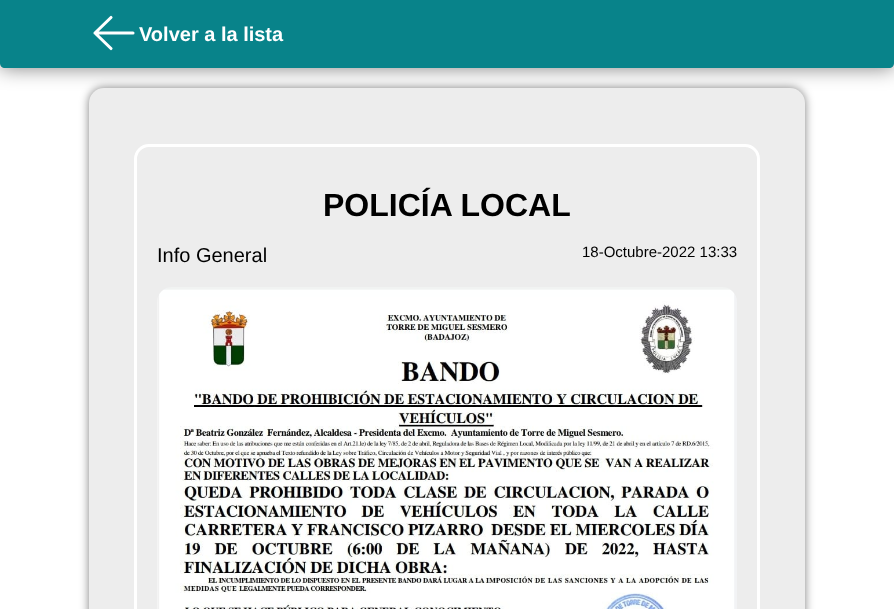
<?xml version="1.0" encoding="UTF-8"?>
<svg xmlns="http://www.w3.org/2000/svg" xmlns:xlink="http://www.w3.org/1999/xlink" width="894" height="609">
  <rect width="100%" height="100%" fill="#ffffff" />
  <rect width="894" height="68" fill="#000000" fill-opacity="0.5" filter="blur(10px)" />
  <path d="M 0 0 h 894 v 63 c 0 3 -2 5 -5 5 h -884 c -3 0 -5 -2 -5 -5 z" fill="#08838a" />
  <path d="M 111 48.5 l -16 -15.5 m 0 0 l 16 -15.5 m -16 15.5 h 38" fill="none" stroke="#ffffff" stroke-width="3.1" stroke-linecap="round" stroke-linejoin="round" />
  <rect x="89" y="88" width="716" height="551" rx="15" fill="#000000" fill-opacity="0.5" filter="blur(5px)" />
  <rect x="89" y="88" width="716" height="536" rx="15" fill="#ededed" />
  <rect x="135.5" y="145.5" width="623" height="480" rx="13.5" fill="none" stroke="#ffffff" stroke-width="3" />
  <image x="157" y="287" width="580" height="322" xlink:href="image1.png" />
  <text x="139" y="41" style="font-family: Liberation Sans; font-size: 20px; font-weight: bold; fill: #ffffff">Volver a la lista</text>
  <text x="323" y="216" style="font-family: Liberation Sans; font-size: 32px; font-weight: bold; fill: #000000">POLICÍA LOCAL</text>
  <text x="157" y="262" style="font-family: Liberation Sans; font-size: 20px; fill: #000000">Info General</text>
  <text x="582" y="257" style="font-family: Liberation Sans; font-size: 15px; fill: #000000">18-Octubre-2022 13:33</text>
</svg>
